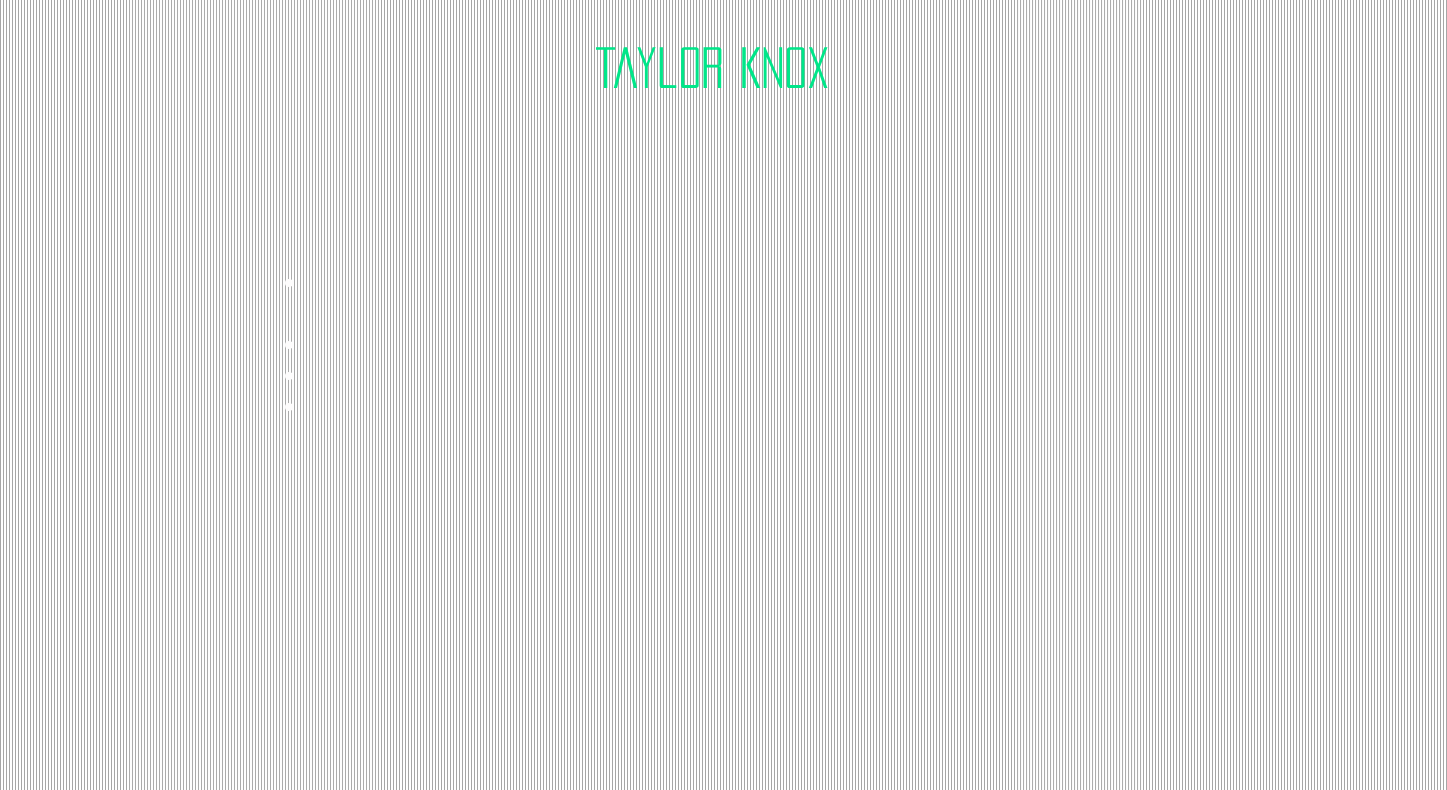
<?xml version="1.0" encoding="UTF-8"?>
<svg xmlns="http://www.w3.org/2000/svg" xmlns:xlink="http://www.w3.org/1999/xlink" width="1447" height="790">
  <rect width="100%" height="100%" fill="#ffffff" />
  <image x="0" y="0" width="1447" height="790" xlink:href="image1.png" />
  <circle cx="289" cy="283" r="4" fill="#fefdfd" />
  <circle cx="289" cy="345" r="4" fill="#fefdfd" />
  <circle cx="289" cy="376" r="4" fill="#fefdfd" />
  <circle cx="289" cy="407" r="4" fill="#fefdfd" />
  <text x="596" y="88" style="font-family: 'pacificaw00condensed'; font-size: 51px; fill: #00e689">Taylor Knox</text>
</svg>
